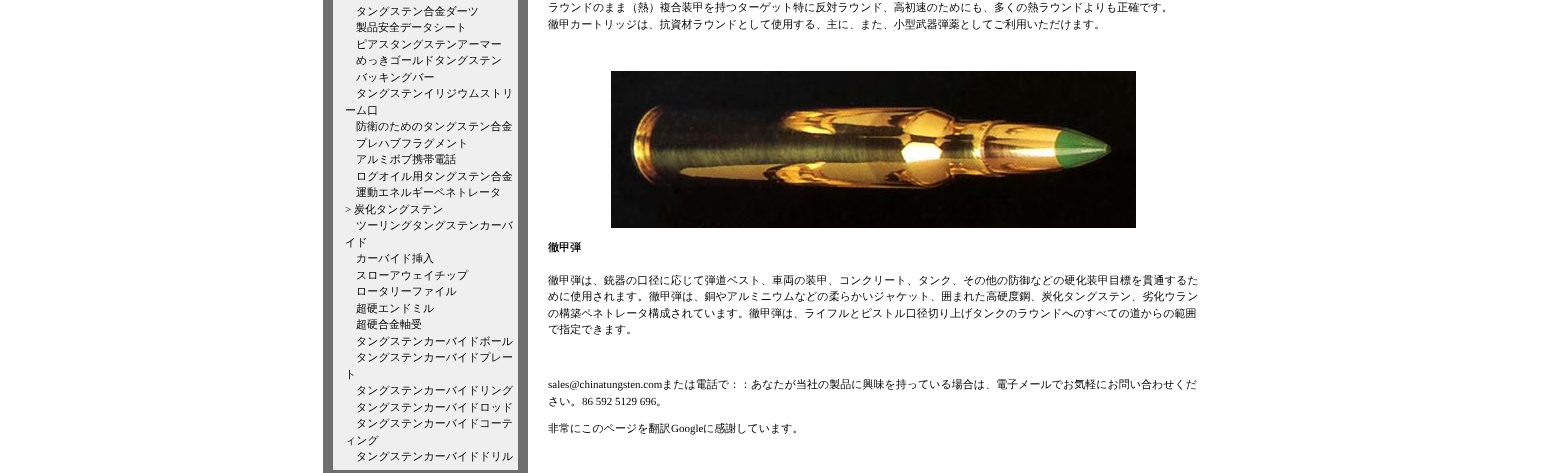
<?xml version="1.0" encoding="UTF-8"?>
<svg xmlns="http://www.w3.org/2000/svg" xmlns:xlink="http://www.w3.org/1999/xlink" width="1546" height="473">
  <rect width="100%" height="100%" fill="#ffffff" />
  <rect x="323" width="10" height="473" fill="#6e6e6e" />
  <rect x="333" y="470" width="185" height="3" fill="#6e6e6e" />
  <rect x="333" width="185" height="470" fill="#efefef" />
  <rect x="518" width="10" height="473" fill="#6e6e6e" />
  <image x="611" y="71" width="525" height="157" xlink:href="image1.png" />
  <text x="356" y="15" style="font-family: WenQuanYi Zen Hei; font-size: 11px; font-weight: 500; fill: #000000">タングステン合金ダーツ</text>
  <text x="356" y="31" style="font-family: WenQuanYi Zen Hei; font-size: 11px; font-weight: 500; fill: #000000">製品安全データシート</text>
  <text x="356" y="48" style="font-family: WenQuanYi Zen Hei; font-size: 11px; font-weight: 500; fill: #000000">ピアスタングステンアーマー</text>
  <text x="356" y="64" style="font-family: WenQuanYi Zen Hei; font-size: 11px; font-weight: 500; fill: #000000">めっきゴールドタングステン</text>
  <text x="356" y="81" style="font-family: WenQuanYi Zen Hei; font-size: 11px; font-weight: 500; fill: #000000">バッキングバー</text>
  <text x="356" y="97" style="font-family: WenQuanYi Zen Hei; font-size: 11px; font-weight: 500; fill: #000000">タングステンイリジウムストリ</text>
  <text x="345" y="114" style="font-family: WenQuanYi Zen Hei; font-size: 11px; font-weight: 500; fill: #000000">ーム口</text>
  <text x="356" y="130" style="font-family: WenQuanYi Zen Hei; font-size: 11px; font-weight: 500; fill: #000000">防衛のためのタングステン合金</text>
  <text x="356" y="147" style="font-family: WenQuanYi Zen Hei; font-size: 11px; font-weight: 500; fill: #000000">プレハブフラグメント</text>
  <text x="356" y="163" style="font-family: WenQuanYi Zen Hei; font-size: 11px; font-weight: 500; fill: #000000">アルミボブ携帯電話</text>
  <text x="356" y="180" style="font-family: WenQuanYi Zen Hei; font-size: 11px; font-weight: 500; fill: #000000">ログオイル用タングステン合金</text>
  <text x="356" y="196" style="font-family: WenQuanYi Zen Hei; font-size: 11px; font-weight: 500; fill: #000000">運動エネルギーペネトレータ</text>
  <text x="345" y="213" style="font-family: Liberation Serif; font-size: 11px; fill: #000000">&gt;</text>
  <text x="354" y="213" style="font-family: WenQuanYi Zen Hei; font-size: 11px; font-weight: 500; fill: #000000">炭化タングステン</text>
  <text x="356" y="229" style="font-family: WenQuanYi Zen Hei; font-size: 11px; font-weight: 500; fill: #000000">ツーリングタングステンカーバ</text>
  <text x="345" y="246" style="font-family: WenQuanYi Zen Hei; font-size: 11px; font-weight: 500; fill: #000000">イド</text>
  <text x="356" y="262" style="font-family: WenQuanYi Zen Hei; font-size: 11px; font-weight: 500; fill: #000000">カーバイド挿入</text>
  <text x="356" y="279" style="font-family: WenQuanYi Zen Hei; font-size: 11px; font-weight: 500; fill: #000000">スローアウェイチップ</text>
  <text x="356" y="295" style="font-family: WenQuanYi Zen Hei; font-size: 11px; font-weight: 500; fill: #000000">ロータリーファイル</text>
  <text x="356" y="312" style="font-family: WenQuanYi Zen Hei; font-size: 11px; font-weight: 500; fill: #000000">超硬エンドミル</text>
  <text x="356" y="328" style="font-family: WenQuanYi Zen Hei; font-size: 11px; font-weight: 500; fill: #000000">超硬合金軸受</text>
  <text x="356" y="345" style="font-family: WenQuanYi Zen Hei; font-size: 11px; font-weight: 500; fill: #000000">タングステンカーバイドボール</text>
  <text x="356" y="361" style="font-family: WenQuanYi Zen Hei; font-size: 11px; font-weight: 500; fill: #000000">タングステンカーバイドプレー</text>
  <text x="345" y="378" style="font-family: WenQuanYi Zen Hei; font-size: 11px; font-weight: 500; fill: #000000">ト</text>
  <text x="356" y="394" style="font-family: WenQuanYi Zen Hei; font-size: 11px; font-weight: 500; fill: #000000">タングステンカーバイドリング</text>
  <text x="356" y="411" style="font-family: WenQuanYi Zen Hei; font-size: 11px; font-weight: 500; fill: #000000">タングステンカーバイドロッド</text>
  <text x="356" y="427" style="font-family: WenQuanYi Zen Hei; font-size: 11px; font-weight: 500; fill: #000000">タングステンカーバイドコーテ</text>
  <text x="345" y="444" style="font-family: WenQuanYi Zen Hei; font-size: 11px; font-weight: 500; fill: #000000">ィング</text>
  <text x="356" y="460" style="font-family: WenQuanYi Zen Hei; font-size: 11px; font-weight: 500; fill: #000000">タングステンカーバイドドリル</text>
  <text x="548" y="11" style="font-family: WenQuanYi Zen Hei; font-size: 11px; font-weight: 500; fill: #000000">ラウンドのまま（熱）複合装甲を持つターゲット特に反対ラウンド、高初速のためにも、多くの熱ラウンドよりも正確です。</text>
  <text x="548" y="28" style="font-family: WenQuanYi Zen Hei; font-size: 11px; font-weight: 500; fill: #000000">徹甲カートリッジは、抗資材ラウンドとして使用する、主に、また、小型武器弾薬としてご利用いただけます。</text>
  <text x="548" y="251" style="font-family: WenQuanYi Zen Hei; font-size: 11px; font-weight: bold; fill: #000000">徹甲弾</text>
  <text x="548" y="284" style="font-family: WenQuanYi Zen Hei; font-size: 11px; font-weight: 500; letter-spacing: 0.1px; fill: #000000">徹甲弾は、銃器の口径に応じて弾道ベスト、車両の装甲、コンクリート、タンク、その他の防御などの硬化装甲目標を貫通するた</text>
  <text x="548" y="300" style="font-family: WenQuanYi Zen Hei; font-size: 11px; font-weight: 500; fill: #000000">めに使用されます。</text>
  <text x="649" y="300" style="font-family: WenQuanYi Zen Hei; font-size: 11px; font-weight: 500; letter-spacing: 0.05px; fill: #000000">徹甲弾は、銅やアルミニウムなどの柔らかいジャケット、囲まれた高硬度鋼、炭化タングステン、劣化ウラン</text>
  <text x="548" y="317" style="font-family: WenQuanYi Zen Hei; font-size: 11px; font-weight: 500; fill: #000000">の構築ペネトレータ構成されています。徹甲弾は、ライフルとピストル口径切り上げタンクのラウンドへのすべての道からの範囲</text>
  <text x="548" y="333" style="font-family: WenQuanYi Zen Hei; font-size: 11px; font-weight: 500; fill: #000000">で指定できます。</text>
  <text x="548" y="388" style="font-family: Liberation Serif; font-size: 11px; fill: #000000">sales@chinatungsten.com</text>
  <text x="662" y="388" style="font-family: WenQuanYi Zen Hei; font-size: 11px; font-weight: 500; fill: #000000">または電話で：：あなたが当社の製品に興味を持っている場合は、電子メールでお気軽にお問い合わせくだ</text>
  <text x="548" y="405" style="font-family: WenQuanYi Zen Hei; font-size: 11px; font-weight: 500; fill: #000000">さい。</text>
  <text x="582" y="405" style="font-family: Liberation Serif; font-size: 11px; fill: #000000">86 592 5129 696</text>
  <text x="656" y="405" style="font-family: WenQuanYi Zen Hei; font-size: 11px; font-weight: 500; fill: #000000">。</text>
  <text x="548" y="432" style="font-family: WenQuanYi Zen Hei; font-size: 11px; font-weight: 500; fill: #000000">非常にこのページを翻訳</text>
  <text x="671" y="432" style="font-family: Liberation Serif; font-size: 11px; fill: #000000">Google</text>
  <text x="703" y="432" style="font-family: WenQuanYi Zen Hei; font-size: 11px; font-weight: 500; fill: #000000">に感謝しています。</text>
</svg>
